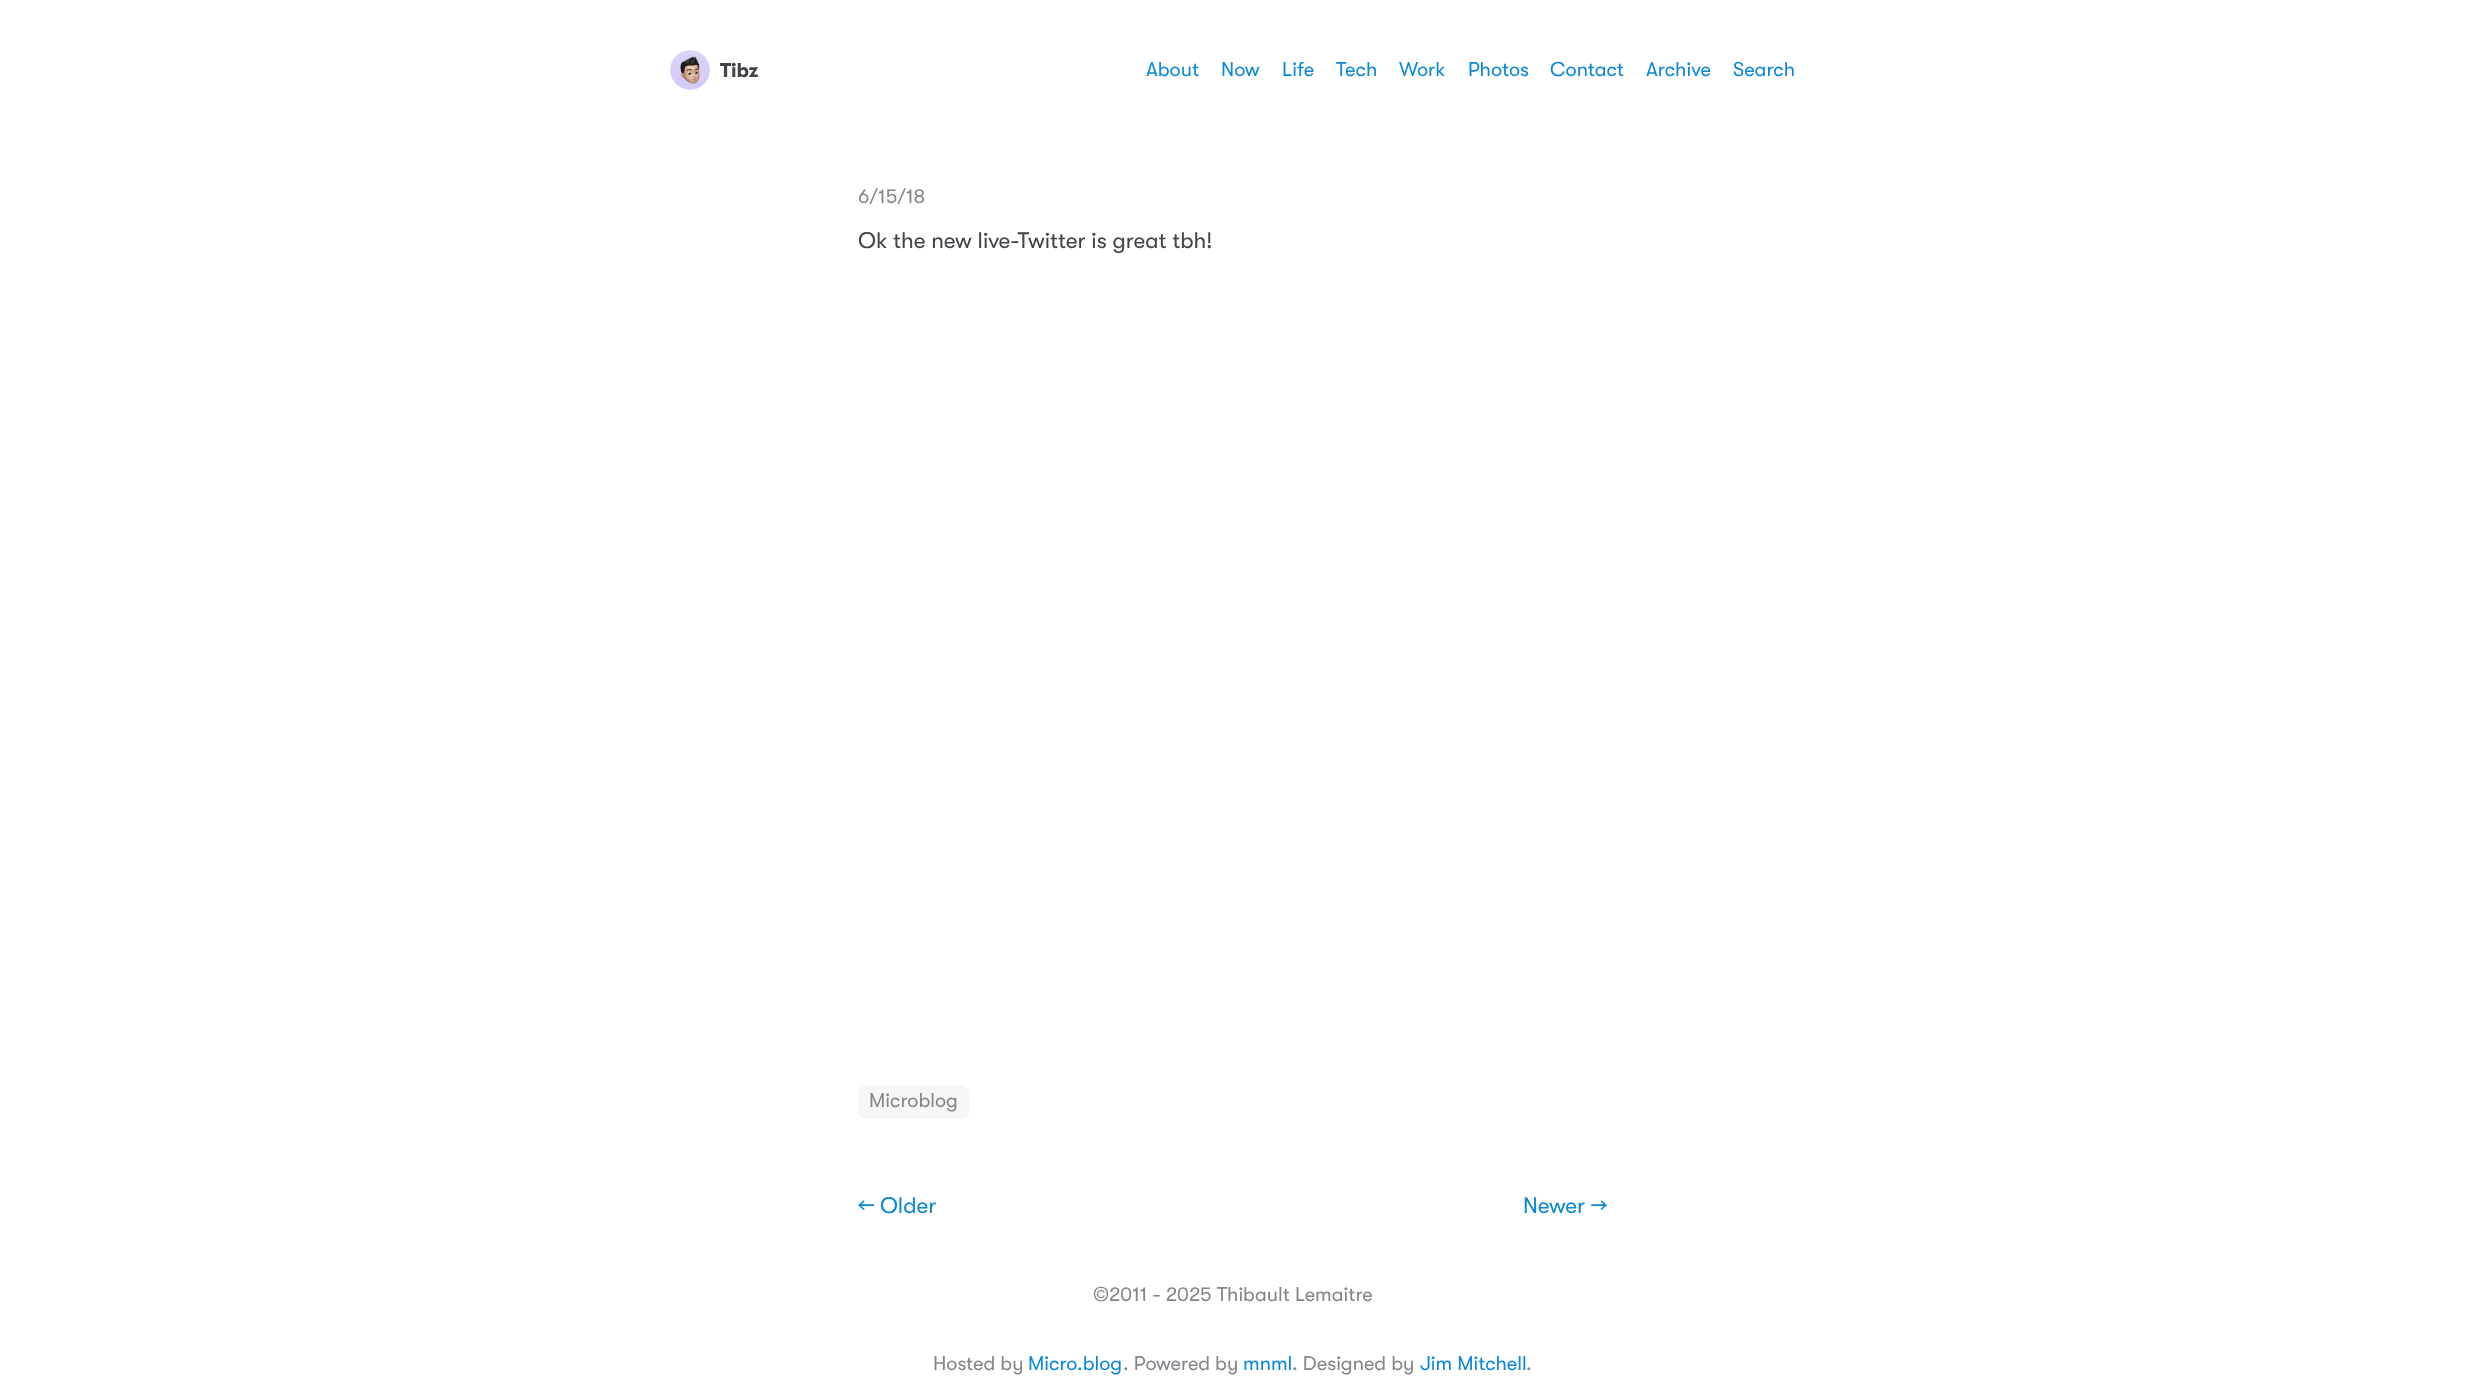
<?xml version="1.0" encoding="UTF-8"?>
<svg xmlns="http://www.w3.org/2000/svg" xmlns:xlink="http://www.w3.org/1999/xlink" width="2465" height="1400">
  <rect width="100%" height="100%" fill="#ffffff" />
  <image x="670" y="50" width="40" height="40" xlink:href="image1.png" />
  <rect x="858" y="1085" width="111" height="34" rx="8" fill="#f6f6f6" />
  <text x="720" y="77" style="font-family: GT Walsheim; font-size: 20px; font-weight: bold; fill: #42444a">Tibz</text>
  <text x="1146" y="76" style="font-family: GT Walsheim; font-size: 20px; fill: #0d88d8">About</text>
  <text x="1221" y="76" style="font-family: GT Walsheim; font-size: 20px; fill: #0d88d8">Now</text>
  <text x="1282" y="76" style="font-family: GT Walsheim; font-size: 20px; fill: #0d88d8">Life</text>
  <text x="1336" y="76" style="font-family: GT Walsheim; font-size: 20px; fill: #0d88d8">Tech</text>
  <text x="1399" y="76" style="font-family: GT Walsheim; font-size: 20px; fill: #0d88d8">Work</text>
  <text x="1468" y="76" style="font-family: GT Walsheim; font-size: 20px; fill: #0d88d8">Photos</text>
  <text x="1550" y="76" style="font-family: GT Walsheim; font-size: 20px; fill: #0d88d8">Contact</text>
  <text x="1646" y="76" style="font-family: GT Walsheim; font-size: 20px; fill: #0d88d8">Archive</text>
  <text x="1733" y="76" style="font-family: GT Walsheim; font-size: 20px; fill: #0d88d8">Search</text>
  <text x="858" y="203" style="font-family: GT Walsheim; font-size: 20px; fill: #84868b">6/15/18</text>
  <text x="858" y="248" style="font-family: GT Walsheim; font-size: 22.5px; fill: #42444a">Ok the new live-Twitter is great tbh!</text>
  <text x="869" y="1107" style="font-family: GT Walsheim; font-size: 20px; fill: #84868b">Microblog</text>
  <text x="858" y="1213" style="font-family: GT Walsheim; font-size: 22.5px; fill: #0d88d8">← Older</text>
  <text x="1523" y="1213" style="font-family: GT Walsheim; font-size: 22.5px; fill: #0d88d8">Newer →</text>
  <text x="1093" y="1301" style="font-family: GT Walsheim; font-size: 20px; fill: #84868b">©2011 - 2025 Thibault Lemaitre</text>
  <text x="933" y="1370" style="font-family: GT Walsheim; font-size: 20px; fill: #84868b">Hosted by</text>
  <text x="1028" y="1370" style="font-family: GT Walsheim; font-size: 20px; fill: #0d88d8">Micro.blog</text>
  <text x="1123" y="1370" style="font-family: GT Walsheim; font-size: 20px; fill: #84868b">. Powered by</text>
  <text x="1243" y="1370" style="font-family: GT Walsheim; font-size: 20px; fill: #0d88d8">mnml</text>
  <text x="1292" y="1370" style="font-family: GT Walsheim; font-size: 20px; fill: #84868b">. Designed by</text>
  <text x="1420" y="1370" style="font-family: GT Walsheim; font-size: 20px; fill: #0d88d8">Jim Mitchell</text>
  <text x="1526" y="1370" style="font-family: GT Walsheim; font-size: 20px; fill: #84868b">.</text>
</svg>
